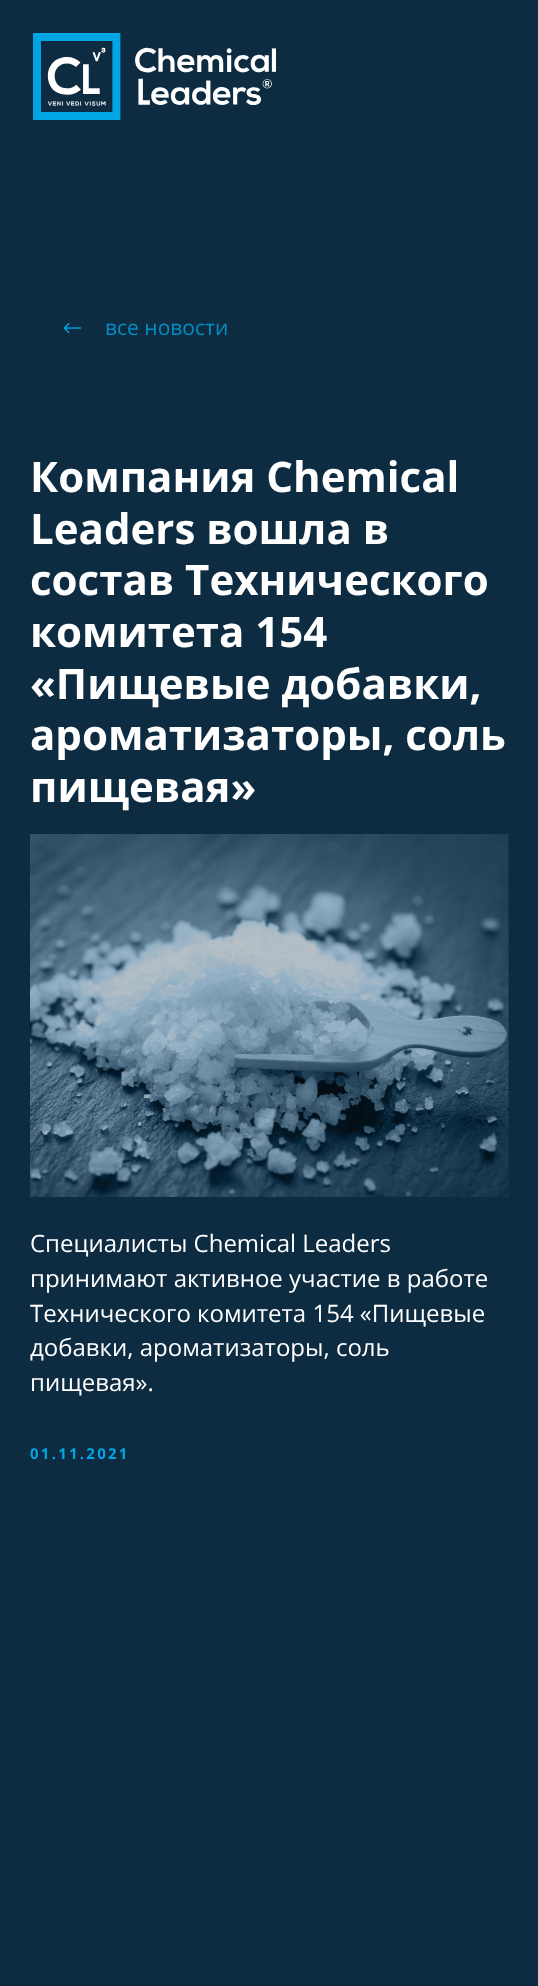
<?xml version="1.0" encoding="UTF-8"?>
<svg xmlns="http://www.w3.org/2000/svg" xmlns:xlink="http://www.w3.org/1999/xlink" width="538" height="1986">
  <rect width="100%" height="100%" fill="#0e2c41" />
  <image x="33" y="33" width="243" height="87" xlink:href="image1.png" />
  <image x="63" y="323" width="18" height="10" xlink:href="image2.png" />
  <image x="30" y="834" width="479" height="363" xlink:href="image3.png" />
  <text x="105" y="335" style="font-family: Open Sans; font-size: 21px; fill: #038ec3">все новости</text>
  <text x="30" y="492" style="font-family: Open Sans; font-size: 42px; font-weight: bold; fill: #ffffff">Компания Chemical</text>
  <text x="30" y="544" style="font-family: Open Sans; font-size: 42px; font-weight: bold; fill: #ffffff">Leaders вошла в</text>
  <text x="30" y="595" style="font-family: Open Sans; font-size: 42px; font-weight: bold; fill: #ffffff">состав Технического</text>
  <text x="30" y="647" style="font-family: Open Sans; font-size: 42px; font-weight: bold; fill: #ffffff">комитета 154</text>
  <text x="30" y="699" style="font-family: Open Sans; font-size: 42px; font-weight: bold; fill: #ffffff">«Пищевые добавки,</text>
  <text x="30" y="750" style="font-family: Open Sans; font-size: 42px; font-weight: bold; fill: #ffffff">ароматизаторы, соль</text>
  <text x="30" y="802" style="font-family: Open Sans; font-size: 42px; font-weight: bold; fill: #ffffff">пищевая»</text>
  <text x="30" y="1252" style="font-family: Open Sans; font-size: 24px; fill: #ffffff">Специалисты Chemical Leaders</text>
  <text x="30" y="1287" style="font-family: Open Sans; font-size: 24px; fill: #ffffff">принимают активное участие в работе</text>
  <text x="30" y="1322" style="font-family: Open Sans; font-size: 24px; fill: #ffffff">Технического комитета 154 «Пищевые</text>
  <text x="30" y="1356" style="font-family: Open Sans; font-size: 24px; fill: #ffffff">добавки, ароматизаторы, соль</text>
  <text x="30" y="1391" style="font-family: Open Sans; font-size: 24px; fill: #ffffff">пищевая».</text>
  <text x="30" y="1459" style="font-family: Open Sans; font-size: 15px; font-weight: bold; letter-spacing: 2.25px; fill: #00a6e3">01.11.2021</text>
</svg>
